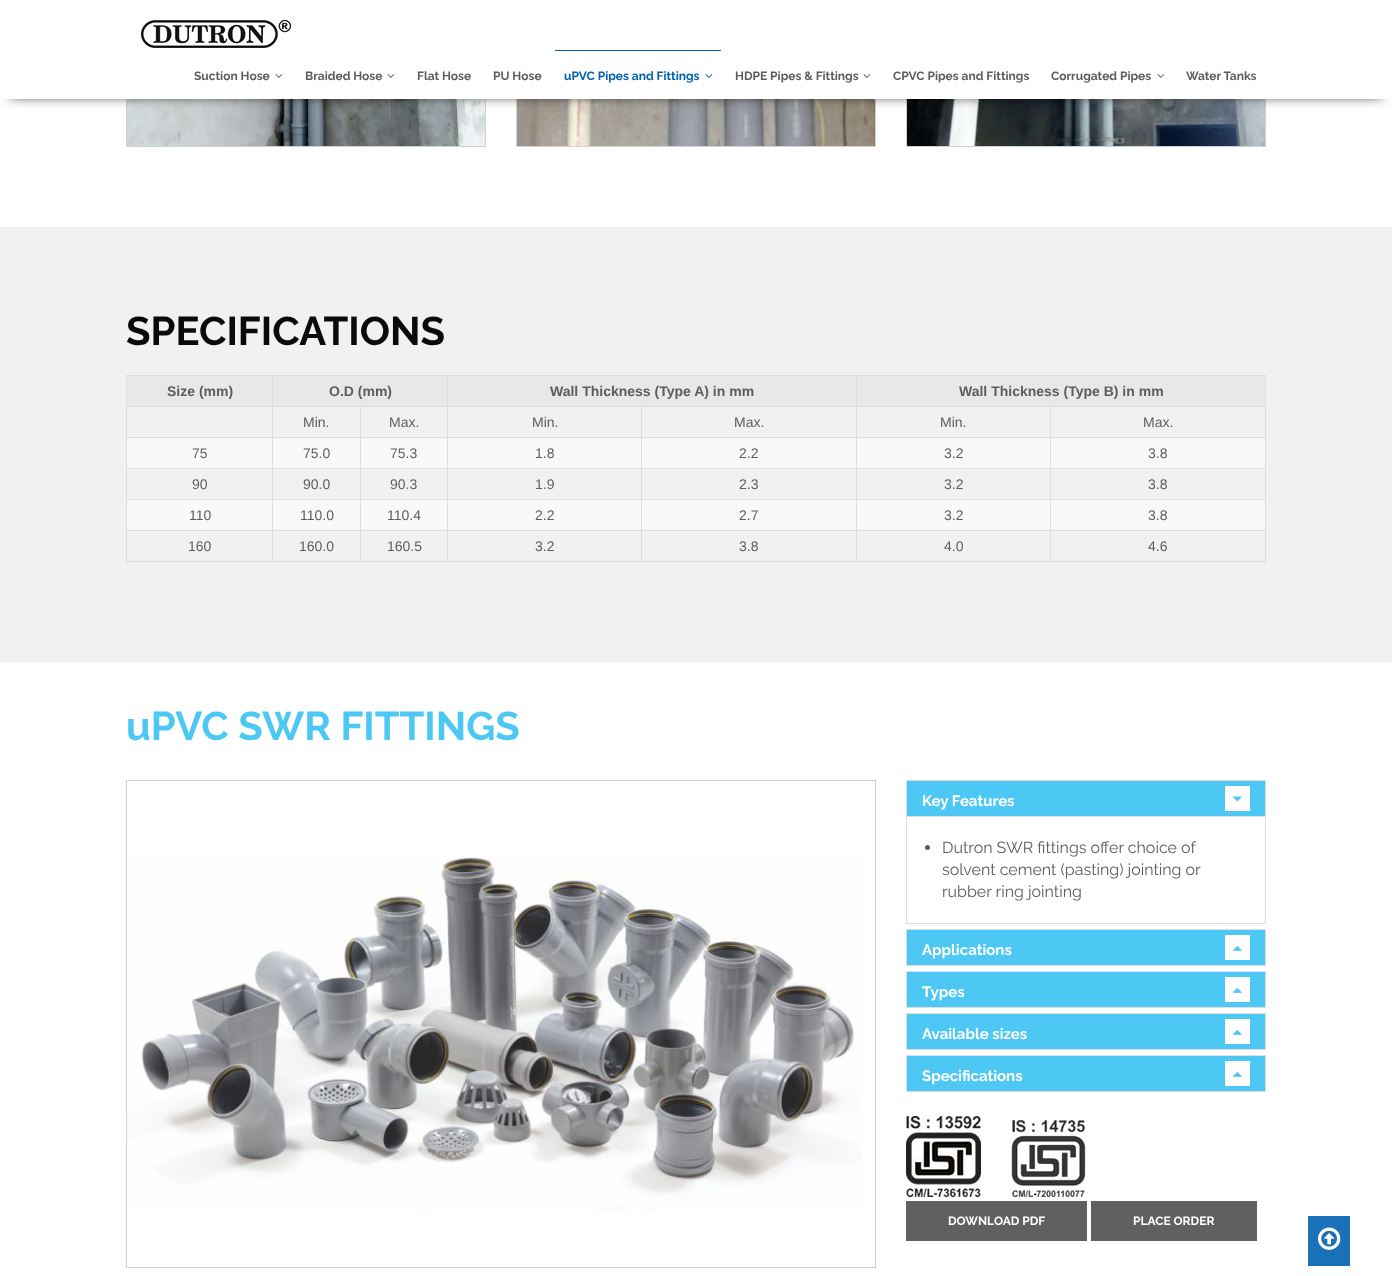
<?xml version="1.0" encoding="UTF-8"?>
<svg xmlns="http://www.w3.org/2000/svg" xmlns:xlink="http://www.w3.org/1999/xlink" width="1392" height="1276">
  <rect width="100%" height="100%" fill="#ffffff" />
  <rect x="126.5" y="-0.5" width="359" height="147" fill="none" stroke="#d0d0d0" />
  <image x="127" y="99" width="358" height="47" xlink:href="image1.png" />
  <rect x="516.5" y="-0.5" width="359" height="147" fill="none" stroke="#d0d0d0" />
  <image x="517" y="99" width="358" height="47" xlink:href="image2.png" />
  <rect x="906.5" y="-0.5" width="359" height="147" fill="none" stroke="#d0d0d0" />
  <image x="907" y="99" width="358" height="47" xlink:href="image3.png" />
  <rect x="10" y="18" width="1372" height="79" fill="#000000" fill-opacity="0.75" filter="blur(6px)" />
  <rect width="1392" height="99" fill="#ffffff" />
  <image x="141" y="20" width="150" height="28" xlink:href="image4.png" />
  <image x="275" y="74" width="8" height="4" xlink:href="image5.png" />
  <image x="387" y="74" width="8" height="4" xlink:href="image5.png" />
  <rect x="555" y="50" width="166" height="1" fill="#0061af" />
  <image x="705" y="74" width="8" height="4" xlink:href="image6.png" />
  <image x="863" y="74" width="8" height="4" xlink:href="image5.png" />
  <image x="1157" y="74" width="8" height="4" xlink:href="image5.png" />
  <rect y="227" width="1392" height="435" fill="#f1f1f1" />
  <rect x="127" y="376" width="145" height="30" fill="#e8e8e8" />
  <rect x="856" y="375" width="410" height="1" fill="#dddddd" />
  <rect x="1050" y="406" width="216" height="1" fill="#dddddd" />
  <rect x="1050" y="437" width="216" height="1" fill="#dddddd" />
  <rect x="127" y="438" width="1138" height="30" fill="#f9f9f9" />
  <rect x="1050" y="468" width="216" height="1" fill="#dddddd" />
  <rect x="1050" y="499" width="216" height="1" fill="#dddddd" />
  <rect x="127" y="500" width="1138" height="30" fill="#f9f9f9" />
  <rect x="1050" y="530" width="216" height="1" fill="#dddddd" />
  <rect x="1265" y="530" width="1" height="32" fill="#dddddd" />
  <rect x="1050" y="561" width="216" height="1" fill="#dddddd" />
  <rect x="1050" y="530" width="1" height="32" fill="#dddddd" />
  <rect x="856" y="530" width="195" height="1" fill="#dddddd" />
  <rect x="1050" y="499" width="1" height="32" fill="#dddddd" />
  <rect x="856" y="499" width="195" height="1" fill="#dddddd" />
  <rect x="1050" y="468" width="1" height="32" fill="#dddddd" />
  <rect x="856" y="468" width="195" height="1" fill="#dddddd" />
  <rect x="1050" y="437" width="1" height="32" fill="#dddddd" />
  <rect x="856" y="437" width="195" height="1" fill="#dddddd" />
  <rect x="1050" y="406" width="1" height="32" fill="#dddddd" />
  <rect x="856" y="406" width="195" height="1" fill="#dddddd" />
  <rect x="856" y="561" width="195" height="1" fill="#dddddd" />
  <rect x="856" y="530" width="1" height="32" fill="#dddddd" />
  <rect x="641" y="530" width="216" height="1" fill="#dddddd" />
  <rect x="856" y="499" width="1" height="32" fill="#dddddd" />
  <rect x="641" y="499" width="216" height="1" fill="#dddddd" />
  <rect x="856" y="468" width="1" height="32" fill="#dddddd" />
  <rect x="641" y="468" width="216" height="1" fill="#dddddd" />
  <rect x="856" y="437" width="1" height="32" fill="#dddddd" />
  <rect x="641" y="437" width="216" height="1" fill="#dddddd" />
  <rect x="856" y="406" width="1" height="32" fill="#dddddd" />
  <rect x="641" y="406" width="216" height="1" fill="#dddddd" />
  <rect x="856" y="375" width="1" height="32" fill="#dddddd" />
  <rect x="447" y="375" width="410" height="1" fill="#dddddd" />
  <rect x="641" y="561" width="216" height="1" fill="#dddddd" />
  <rect x="641" y="530" width="1" height="32" fill="#dddddd" />
  <rect x="447" y="530" width="195" height="1" fill="#dddddd" />
  <rect x="641" y="499" width="1" height="32" fill="#dddddd" />
  <rect x="447" y="499" width="195" height="1" fill="#dddddd" />
  <rect x="641" y="468" width="1" height="32" fill="#dddddd" />
  <rect x="447" y="468" width="195" height="1" fill="#dddddd" />
  <rect x="641" y="437" width="1" height="32" fill="#dddddd" />
  <rect x="447" y="437" width="195" height="1" fill="#dddddd" />
  <rect x="641" y="406" width="1" height="32" fill="#dddddd" />
  <rect x="447" y="406" width="195" height="1" fill="#dddddd" />
  <rect x="447" y="561" width="195" height="1" fill="#dddddd" />
  <rect x="447" y="530" width="1" height="32" fill="#dddddd" />
  <rect x="360" y="530" width="88" height="1" fill="#dddddd" />
  <rect x="447" y="499" width="1" height="32" fill="#dddddd" />
  <rect x="360" y="499" width="88" height="1" fill="#dddddd" />
  <rect x="447" y="468" width="1" height="32" fill="#dddddd" />
  <rect x="360" y="468" width="88" height="1" fill="#dddddd" />
  <rect x="447" y="437" width="1" height="32" fill="#dddddd" />
  <rect x="360" y="437" width="88" height="1" fill="#dddddd" />
  <rect x="447" y="406" width="1" height="32" fill="#dddddd" />
  <rect x="360" y="406" width="88" height="1" fill="#dddddd" />
  <rect x="447" y="375" width="1" height="32" fill="#dddddd" />
  <rect x="272" y="375" width="176" height="1" fill="#dddddd" />
  <rect x="360" y="561" width="88" height="1" fill="#dddddd" />
  <rect x="360" y="530" width="1" height="32" fill="#dddddd" />
  <rect x="272" y="530" width="89" height="1" fill="#dddddd" />
  <rect x="360" y="499" width="1" height="32" fill="#dddddd" />
  <rect x="272" y="499" width="89" height="1" fill="#dddddd" />
  <rect x="360" y="468" width="1" height="32" fill="#dddddd" />
  <rect x="272" y="468" width="89" height="1" fill="#dddddd" />
  <rect x="360" y="437" width="1" height="32" fill="#dddddd" />
  <rect x="272" y="437" width="89" height="1" fill="#dddddd" />
  <rect x="360" y="406" width="1" height="32" fill="#dddddd" />
  <rect x="272" y="406" width="89" height="1" fill="#dddddd" />
  <rect x="272" y="561" width="89" height="1" fill="#dddddd" />
  <rect x="272" y="530" width="1" height="32" fill="#dddddd" />
  <rect x="126" y="530" width="147" height="1" fill="#dddddd" />
  <rect x="272" y="499" width="1" height="32" fill="#dddddd" />
  <rect x="126" y="499" width="147" height="1" fill="#dddddd" />
  <rect x="272" y="468" width="1" height="32" fill="#dddddd" />
  <rect x="126" y="468" width="147" height="1" fill="#dddddd" />
  <rect x="272" y="437" width="1" height="32" fill="#dddddd" />
  <rect x="126" y="437" width="147" height="1" fill="#dddddd" />
  <rect x="272" y="406" width="1" height="32" fill="#dddddd" />
  <rect x="126" y="406" width="147" height="1" fill="#dddddd" />
  <rect x="272" y="375" width="1" height="32" fill="#dddddd" />
  <rect x="126" y="375" width="147" height="1" fill="#dddddd" />
  <rect x="126" y="561" width="147" height="1" fill="#dddddd" />
  <rect x="126" y="530" width="1" height="32" fill="#dddddd" />
  <rect x="126" y="499" width="1" height="32" fill="#dddddd" />
  <rect x="126" y="468" width="1" height="32" fill="#dddddd" />
  <rect x="126" y="437" width="1" height="32" fill="#dddddd" />
  <rect x="126" y="406" width="1" height="32" fill="#dddddd" />
  <rect x="126" y="375" width="1" height="32" fill="#dddddd" />
  <rect x="273" y="376" width="174" height="30" fill="#e8e8e8" />
  <rect x="448" y="376" width="408" height="30" fill="#e8e8e8" />
  <rect x="857" y="376" width="408" height="30" fill="#e8e8e8" />
  <rect x="1265" y="499" width="1" height="32" fill="#dddddd" />
  <rect x="1265" y="468" width="1" height="32" fill="#dddddd" />
  <rect x="1265" y="437" width="1" height="32" fill="#dddddd" />
  <rect x="1265" y="406" width="1" height="32" fill="#dddddd" />
  <rect x="1265" y="375" width="1" height="32" fill="#dddddd" />
  <rect x="126.5" y="780.5" width="749" height="487" fill="none" stroke="#d0d0d0" />
  <image x="127" y="857" width="735" height="355" xlink:href="image7.png" />
  <rect x="906.5" y="780.5" width="359" height="143" fill="none" stroke="#dddddd" />
  <rect x="907" y="781" width="358" height="35" fill="#4dc8f4" />
  <rect x="1225" y="786" width="25" height="25" fill="#ffffff" />
  <image x="1233" y="796" width="9" height="6" xlink:href="image8.png" />
  <rect x="907" y="816" width="358" height="1" fill="#dddddd" />
  <circle cx="927.5" cy="847.5" r="2.5" fill="#5d5d5d" />
  <rect x="906.5" y="929.5" width="359" height="36" fill="none" stroke="#dddddd" />
  <rect x="907" y="930" width="358" height="35" fill="#4dc8f4" />
  <rect x="1225" y="935" width="25" height="25" fill="#ffffff" />
  <image x="1233" y="946" width="9" height="5" xlink:href="image9.png" />
  <rect x="906.5" y="971.5" width="359" height="36" fill="none" stroke="#dddddd" />
  <rect x="907" y="972" width="358" height="35" fill="#4dc8f4" />
  <rect x="1225" y="977" width="25" height="25" fill="#ffffff" />
  <image x="1233" y="988" width="9" height="5" xlink:href="image9.png" />
  <rect x="906.5" y="1013.5" width="359" height="36" fill="none" stroke="#dddddd" />
  <rect x="907" y="1014" width="358" height="35" fill="#4dc8f4" />
  <rect x="1225" y="1019" width="25" height="25" fill="#ffffff" />
  <image x="1233" y="1030" width="9" height="5" xlink:href="image9.png" />
  <rect x="906.5" y="1055.5" width="359" height="36" fill="none" stroke="#dddddd" />
  <rect x="907" y="1056" width="358" height="35" fill="#4dc8f4" />
  <rect x="1225" y="1061" width="25" height="25" fill="#ffffff" />
  <image x="1233" y="1072" width="9" height="5" xlink:href="image9.png" />
  <image x="906" y="1116" width="75" height="81" xlink:href="image10.png" />
  <image x="1006" y="1120" width="80" height="80" xlink:href="image11.png" />
  <rect x="906" y="1201" width="181" height="40" fill="#606060" />
  <rect x="1091" y="1201" width="166" height="40" fill="#606060" />
  <rect x="1308" y="1216" width="42" height="50" fill="#1a71b7" />
  <image x="1318" y="1227" width="23" height="23" xlink:href="image12.png" />
  <text x="194" y="80" style="font-family: Raleway; font-size: 12px; font-weight: bold; fill: #5d5d5d">Suction Hose</text>
  <text x="305" y="80" style="font-family: Raleway; font-size: 12px; font-weight: bold; fill: #5d5d5d">Braided Hose</text>
  <text x="417" y="80" style="font-family: Raleway; font-size: 12px; font-weight: bold; fill: #5d5d5d">Flat Hose</text>
  <text x="493" y="80" style="font-family: Raleway; font-size: 12px; font-weight: bold; fill: #5d5d5d">PU Hose</text>
  <text x="564" y="80" style="font-family: Raleway; font-size: 12px; font-weight: bold; fill: #0061af">uPVC Pipes and Fittings</text>
  <text x="735" y="80" style="font-family: Raleway; font-size: 12px; font-weight: bold; fill: #5d5d5d">HDPE Pipes &amp; Fittings</text>
  <text x="893" y="80" style="font-family: Raleway; font-size: 12px; font-weight: bold; fill: #5d5d5d">CPVC Pipes and Fittings</text>
  <text x="1051" y="80" style="font-family: Raleway; font-size: 12px; font-weight: bold; fill: #5d5d5d">Corrugated Pipes</text>
  <text x="1186" y="80" style="font-family: Raleway; font-size: 12px; font-weight: bold; fill: #5d5d5d">Water Tanks</text>
  <text x="126" y="345" style="font-family: Raleway; font-size: 40px; font-weight: bold; fill: #0a0a0a">SPECIFICATIONS</text>
  <text x="167" y="396" style="font-family: Liberation Sans; font-size: 14px; font-weight: bold; fill: #5d5d5d">Size (mm)</text>
  <text x="329" y="396" style="font-family: Liberation Sans; font-size: 14px; font-weight: bold; fill: #5d5d5d">O.D (mm)</text>
  <text x="550" y="396" style="font-family: Liberation Sans; font-size: 14px; font-weight: bold; fill: #5d5d5d">Wall Thickness (Type A) in mm</text>
  <text x="959" y="396" style="font-family: Liberation Sans; font-size: 14px; font-weight: bold; fill: #5d5d5d">Wall Thickness (Type B) in mm</text>
  <text x="303" y="427" style="font-family: Liberation Sans; font-size: 14px; fill: #5d5d5d">Min.</text>
  <text x="389" y="427" style="font-family: Liberation Sans; font-size: 14px; fill: #5d5d5d">Max.</text>
  <text x="532" y="427" style="font-family: Liberation Sans; font-size: 14px; fill: #5d5d5d">Min.</text>
  <text x="734" y="427" style="font-family: Liberation Sans; font-size: 14px; fill: #5d5d5d">Max.</text>
  <text x="940" y="427" style="font-family: Liberation Sans; font-size: 14px; fill: #5d5d5d">Min.</text>
  <text x="1143" y="427" style="font-family: Liberation Sans; font-size: 14px; fill: #5d5d5d">Max.</text>
  <text x="192" y="458" style="font-family: Liberation Sans; font-size: 14px; fill: #5d5d5d">75</text>
  <text x="303" y="458" style="font-family: Liberation Sans; font-size: 14px; fill: #5d5d5d">75.0</text>
  <text x="390" y="458" style="font-family: Liberation Sans; font-size: 14px; fill: #5d5d5d">75.3</text>
  <text x="535" y="458" style="font-family: Liberation Sans; font-size: 14px; fill: #5d5d5d">1.8</text>
  <text x="739" y="458" style="font-family: Liberation Sans; font-size: 14px; fill: #5d5d5d">2.2</text>
  <text x="944" y="458" style="font-family: Liberation Sans; font-size: 14px; fill: #5d5d5d">3.2</text>
  <text x="1148" y="458" style="font-family: Liberation Sans; font-size: 14px; fill: #5d5d5d">3.8</text>
  <text x="192" y="489" style="font-family: Liberation Sans; font-size: 14px; fill: #5d5d5d">90</text>
  <text x="303" y="489" style="font-family: Liberation Sans; font-size: 14px; fill: #5d5d5d">90.0</text>
  <text x="390" y="489" style="font-family: Liberation Sans; font-size: 14px; fill: #5d5d5d">90.3</text>
  <text x="535" y="489" style="font-family: Liberation Sans; font-size: 14px; fill: #5d5d5d">1.9</text>
  <text x="739" y="489" style="font-family: Liberation Sans; font-size: 14px; fill: #5d5d5d">2.3</text>
  <text x="944" y="489" style="font-family: Liberation Sans; font-size: 14px; fill: #5d5d5d">3.2</text>
  <text x="1148" y="489" style="font-family: Liberation Sans; font-size: 14px; fill: #5d5d5d">3.8</text>
  <text x="189" y="520" style="font-family: Liberation Sans; font-size: 14px; fill: #5d5d5d">110</text>
  <text x="300" y="520" style="font-family: Liberation Sans; font-size: 14px; fill: #5d5d5d">110.0</text>
  <text x="387" y="520" style="font-family: Liberation Sans; font-size: 14px; fill: #5d5d5d">110.4</text>
  <text x="535" y="520" style="font-family: Liberation Sans; font-size: 14px; fill: #5d5d5d">2.2</text>
  <text x="739" y="520" style="font-family: Liberation Sans; font-size: 14px; fill: #5d5d5d">2.7</text>
  <text x="944" y="520" style="font-family: Liberation Sans; font-size: 14px; fill: #5d5d5d">3.2</text>
  <text x="1148" y="520" style="font-family: Liberation Sans; font-size: 14px; fill: #5d5d5d">3.8</text>
  <text x="188" y="551" style="font-family: Liberation Sans; font-size: 14px; fill: #5d5d5d">160</text>
  <text x="299" y="551" style="font-family: Liberation Sans; font-size: 14px; fill: #5d5d5d">160.0</text>
  <text x="387" y="551" style="font-family: Liberation Sans; font-size: 14px; fill: #5d5d5d">160.5</text>
  <text x="535" y="551" style="font-family: Liberation Sans; font-size: 14px; fill: #5d5d5d">3.2</text>
  <text x="739" y="551" style="font-family: Liberation Sans; font-size: 14px; fill: #5d5d5d">3.8</text>
  <text x="944" y="551" style="font-family: Liberation Sans; font-size: 14px; fill: #5d5d5d">4.0</text>
  <text x="1148" y="551" style="font-family: Liberation Sans; font-size: 14px; fill: #5d5d5d">4.6</text>
  <text x="126" y="740" style="font-family: Raleway; font-size: 40px; font-weight: bold; fill: #4dc8f4">uPVC SWR FITTINGS</text>
  <text x="922" y="806" style="font-family: Raleway; font-size: 15px; font-weight: bold; fill: #ffffff">Key Features</text>
  <text x="942" y="853" style="font-family: Raleway; font-size: 16px; fill: #5d5d5d">Dutron SWR fittings offer choice of</text>
  <text x="942" y="875" style="font-family: Raleway; font-size: 16px; fill: #5d5d5d">solvent cement (pasting) jointing or</text>
  <text x="942" y="897" style="font-family: Raleway; font-size: 16px; fill: #5d5d5d">rubber ring jointing</text>
  <text x="922" y="955" style="font-family: Raleway; font-size: 15px; font-weight: bold; fill: #ffffff">Applications</text>
  <text x="922" y="997" style="font-family: Raleway; font-size: 15px; font-weight: bold; fill: #ffffff">Types</text>
  <text x="922" y="1039" style="font-family: Raleway; font-size: 15px; font-weight: bold; fill: #ffffff">Available sizes</text>
  <text x="922" y="1081" style="font-family: Raleway; font-size: 15px; font-weight: bold; fill: #ffffff">Specifications</text>
  <text x="948" y="1225" style="font-family: Raleway; font-size: 12px; font-weight: bold; fill: #ffffff">DOWNLOAD PDF</text>
  <text x="1133" y="1225" style="font-family: Raleway; font-size: 12px; font-weight: bold; fill: #ffffff">PLACE ORDER</text>
</svg>
